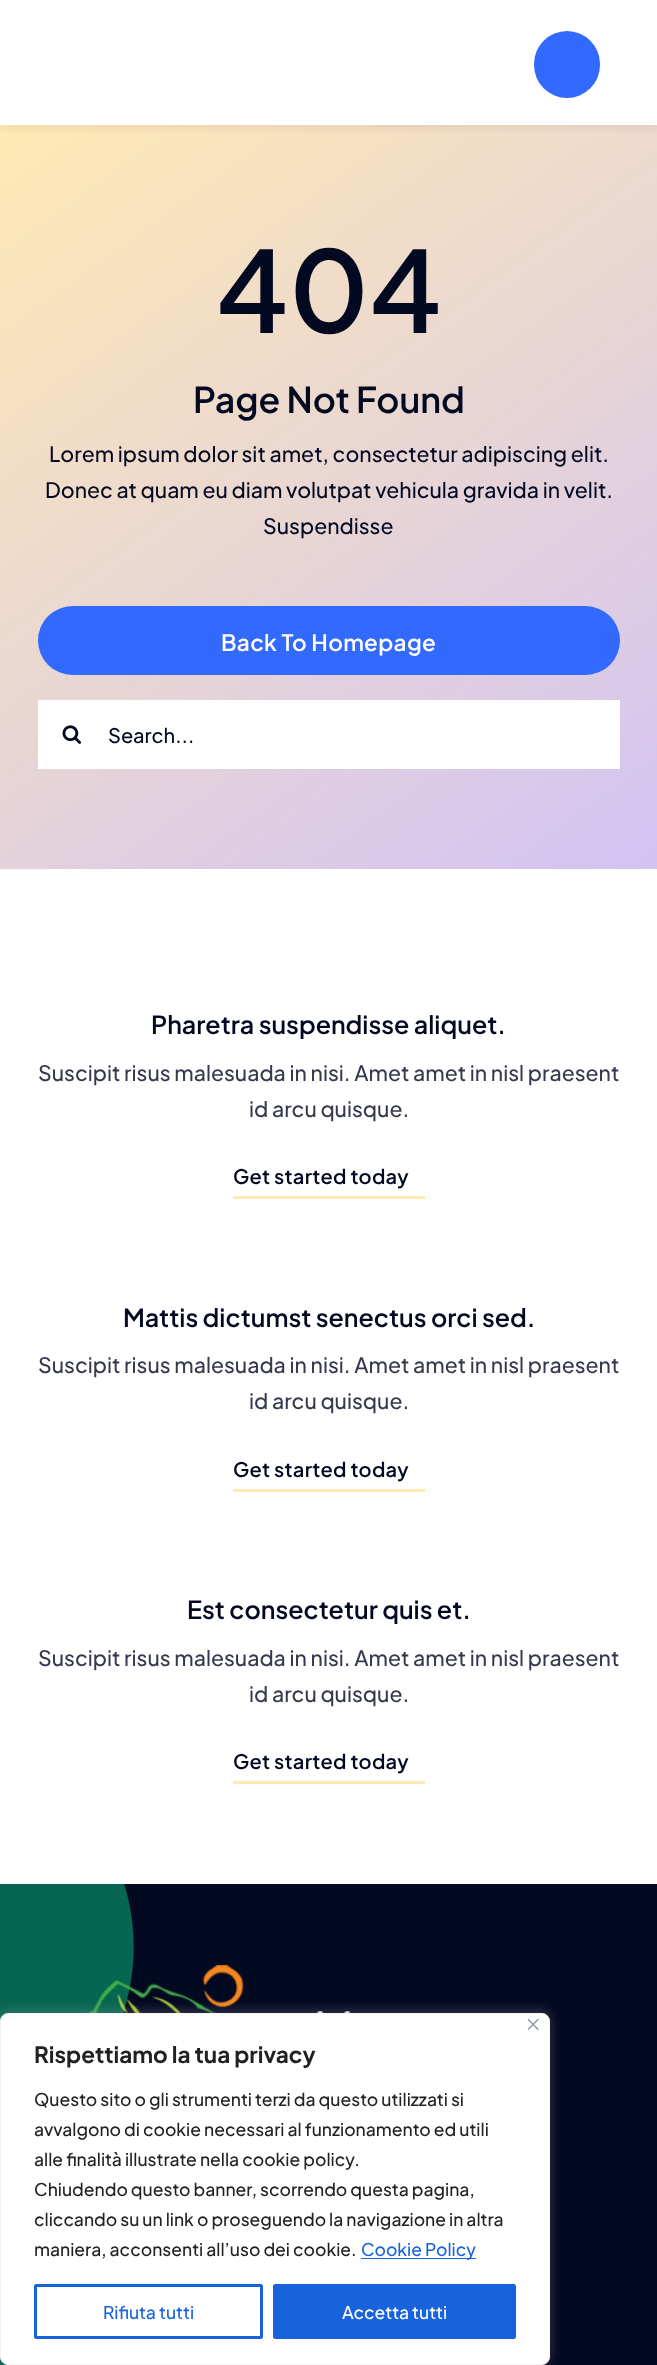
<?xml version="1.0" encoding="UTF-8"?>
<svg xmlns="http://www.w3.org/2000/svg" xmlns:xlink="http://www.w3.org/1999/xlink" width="657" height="2365">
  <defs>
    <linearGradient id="g1" gradientUnits="userSpaceOnUse" x1="38" y1="97" x2="619" y2="897"><stop offset="0" stop-color="#ffe9b3" /><stop offset="1" stop-color="#d2c3f4" /></linearGradient>
    <clipPath id="clip1"><rect x="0" y="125" width="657" height="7" /></clipPath>
  </defs>
  <rect width="100%" height="100%" fill="#ffffff" />
  <rect y="125" width="657" height="744" fill="url(#g1)" />
  <g clip-path="url(#clip1)">
    <rect width="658" height="125" fill="#040820" fill-opacity="0.1" filter="blur(8px)" />
  </g>
  <rect x="534" y="31" width="66" height="67" rx="33" fill="#3269ff" />
  <rect x="38" y="606" width="582" height="69" rx="34.5" fill="#3269ff" />
  <rect x="38" y="700" width="582" height="69" fill="#ffffff" />
  <image x="62" y="725" width="20" height="19" xlink:href="image1.png" />
  <rect x="233" y="1196" width="192" height="3" fill="#ffe9b3" />
  <rect x="233" y="1489" width="192" height="3" fill="#ffe9b3" />
  <rect x="233" y="1781" width="192" height="3" fill="#ffe9b3" />
  <rect x="123" y="1884" width="534" height="481" fill="#040922" />
  <image x="0" y="1884" width="134" height="481" xlink:href="image2.png" />
  <image x="86" y="1964" width="265" height="49" xlink:href="image3.png" />
  <rect y="2011" width="550" height="353" rx="8" fill="#acabab" fill-opacity="0.3" filter="blur(6px)" />
  <rect x="0.5" y="2013.5" width="549" height="351" rx="7.5" fill="#ffffff" stroke="#f4f4f4" />
  <image x="528" y="2019" width="11" height="11" xlink:href="image4.png" />
  <rect x="361" y="2258" width="115" height="1" fill="#1863dc" />
  <rect x="35.5" y="2285.5" width="226" height="52" rx="1" fill="none" stroke="#1863dc" stroke-width="3" />
  <rect x="274.5" y="2285.5" width="240" height="52" rx="1" fill="#1863dc" stroke="#1863dc" stroke-width="3" />
  <text x="216" y="333" style="font-family: Plus Jakarta Sans; font-size: 112.5px; font-weight: 600; fill: #040922">404</text>
  <text x="193" y="413" style="font-family: Plus Jakarta Sans; font-size: 35.5px; font-weight: 600; fill: #040922">Page Not Found</text>
  <text x="49" y="462" style="font-family: Plus Jakarta Sans; font-size: 21.25px; font-weight: 500; fill: #040922">Lorem ipsum dolor sit amet, consectetur adipiscing elit.</text>
  <text x="45" y="498" style="font-family: Plus Jakarta Sans; font-size: 21.25px; font-weight: 500; fill: #040922">Donec at quam eu diam volutpat vehicula gravida in velit.</text>
  <text x="263" y="534" style="font-family: Plus Jakarta Sans; font-size: 21.25px; font-weight: 500; fill: #040922">Suspendisse</text>
  <text x="221" y="651" style="font-family: Plus Jakarta Sans; font-size: 22.5px; font-weight: 600; letter-spacing: 0.3px; fill: #ffffff">Back To Homepage</text>
  <text x="108" y="743" style="font-family: Plus Jakarta Sans; font-size: 20px; font-weight: 500; fill: #040922">Search...</text>
  <text x="151" y="1034" style="font-family: Plus Jakarta Sans; font-size: 25px; font-weight: 600; fill: #040922">Pharetra suspendisse aliquet.</text>
  <text x="38" y="1081" style="font-family: Plus Jakarta Sans; font-size: 21.25px; font-weight: 500; fill: #36394d">Suscipit risus malesuada in nisi. Amet amet in nisl praesent</text>
  <text x="249" y="1117" style="font-family: Plus Jakarta Sans; font-size: 21.25px; font-weight: 500; fill: #36394d">id arcu quisque.</text>
  <text x="233" y="1184" style="font-family: Plus Jakarta Sans; font-size: 20px; font-weight: 600; letter-spacing: 0.25px; fill: #040922">Get started today</text>
  <text x="123" y="1327" style="font-family: Plus Jakarta Sans; font-size: 25px; font-weight: 600; fill: #040922">Mattis dictumst senectus orci sed.</text>
  <text x="38" y="1373" style="font-family: Plus Jakarta Sans; font-size: 21.25px; font-weight: 500; fill: #36394d">Suscipit risus malesuada in nisi. Amet amet in nisl praesent</text>
  <text x="249" y="1409" style="font-family: Plus Jakarta Sans; font-size: 21.25px; font-weight: 500; fill: #36394d">id arcu quisque.</text>
  <text x="233" y="1477" style="font-family: Plus Jakarta Sans; font-size: 20px; font-weight: 600; letter-spacing: 0.25px; fill: #040922">Get started today</text>
  <text x="187" y="1619" style="font-family: Plus Jakarta Sans; font-size: 25px; font-weight: 600; fill: #040922">Est consectetur quis et.</text>
  <text x="38" y="1666" style="font-family: Plus Jakarta Sans; font-size: 21.25px; font-weight: 500; fill: #36394d">Suscipit risus malesuada in nisi. Amet amet in nisl praesent</text>
  <text x="249" y="1702" style="font-family: Plus Jakarta Sans; font-size: 21.25px; font-weight: 500; fill: #36394d">id arcu quisque.</text>
  <text x="233" y="1769" style="font-family: Plus Jakarta Sans; font-size: 20px; font-weight: 600; letter-spacing: 0.25px; fill: #040922">Get started today</text>
  <text x="34" y="2063" style="font-family: Plus Jakarta Sans; font-size: 22.5px; font-weight: bold; fill: #212121">Rispettiamo la tua privacy</text>
  <text x="34" y="2106" style="font-family: Plus Jakarta Sans; font-size: 17.5px; font-weight: 500; fill: #212121">Questo sito o gli strumenti terzi da questo utilizzati si</text>
  <text x="34" y="2136" style="font-family: Plus Jakarta Sans; font-size: 17.5px; font-weight: 500; fill: #212121">avvalgono di cookie necessari al funzionamento ed utili</text>
  <text x="34" y="2166" style="font-family: Plus Jakarta Sans; font-size: 17.5px; font-weight: 500; fill: #212121">alle finalità illustrate nella cookie policy.</text>
  <text x="34" y="2196" style="font-family: Plus Jakarta Sans; font-size: 17.5px; font-weight: 500; fill: #212121">Chiudendo questo banner, scorrendo questa pagina,</text>
  <text x="34" y="2226" style="font-family: Plus Jakarta Sans; font-size: 17.5px; font-weight: 500; fill: #212121">cliccando su un link o proseguendo la navigazione in altra</text>
  <text x="34" y="2256" style="font-family: Plus Jakarta Sans; font-size: 17.5px; font-weight: 500; fill: #212121">maniera, acconsenti all’uso dei cookie.</text>
  <text x="361" y="2256" style="font-family: Plus Jakarta Sans; font-size: 17.5px; font-weight: 500; fill: #1863dc">Cookie Policy</text>
  <text x="103" y="2319" style="font-family: Plus Jakarta Sans; font-size: 17.5px; font-weight: 500; fill: #1863dc">Rifiuta tutti</text>
  <text x="342" y="2319" style="font-family: Plus Jakarta Sans; font-size: 17.5px; font-weight: 500; fill: #ffffff">Accetta tutti</text>
</svg>
